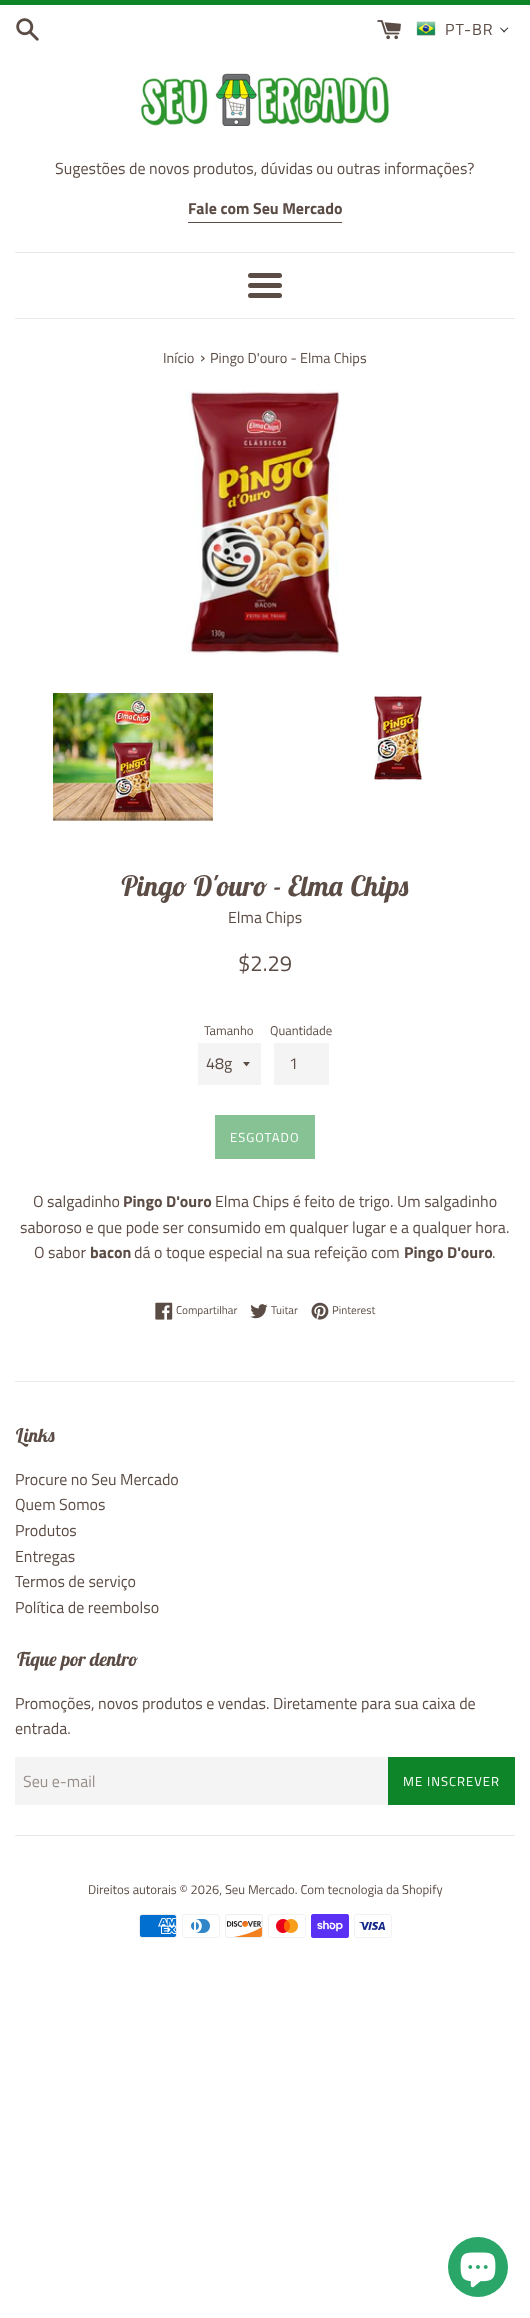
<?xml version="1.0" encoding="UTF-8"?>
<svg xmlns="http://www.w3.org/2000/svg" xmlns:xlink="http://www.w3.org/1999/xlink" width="530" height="2318">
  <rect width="100%" height="100%" fill="#ffffff" />
  <rect width="530" height="5" fill="#0f8529" />
  <image x="16" y="18" width="23" height="23" xlink:href="image1.png" />
  <image x="377" y="20" width="24" height="20" xlink:href="image2.png" />
  <image x="416" y="21" width="20" height="15" xlink:href="image3.png" />
  <path d="M 507.5 27.5 l 1 0.5 l -4.5 4.5 l -0.5 -1 z" fill="#3a3a3a" />
  <path d="M 500.5 27.5 l 4.5 4 l -1 1 l -4 -4.5 z" fill="#3a3a3a" />
  <image x="140" y="73" width="250" height="53" xlink:href="image4.png" />
  <rect x="188" y="222" width="154" height="1" fill="#5b4c45" />
  <rect x="15" y="252" width="500" height="1" fill="#ede8e7" />
  <rect x="248" y="273" width="34" height="5" rx="2.5" fill="#5b4c45" />
  <rect x="248" y="283" width="34" height="5" rx="2.5" fill="#5b4c45" />
  <rect x="248" y="293" width="34" height="5" rx="2.5" fill="#5b4c45" />
  <rect x="15" y="318" width="500" height="1" fill="#ede8e7" />
  <image x="185" y="390" width="155" height="265" xlink:href="image5.png" />
  <image x="53" y="693" width="160" height="128" xlink:href="image6.png" />
  <image x="373" y="694" width="50" height="87" xlink:href="image7.png" />
  <rect x="198" y="1043" width="63" height="42" fill="#f4f4f4" />
  <path d="M 243 1062 c 4.5 5.5 2.5 5.5 7 0 z" fill="#5b4c45" />
  <rect x="274" y="1043" width="55" height="42" fill="#f4f4f4" />
  <rect x="215" y="1115" width="100" height="44" fill="#87c294" />
  <image x="155" y="1302" width="18" height="18" xlink:href="image8.png" />
  <image x="250" y="1304" width="18" height="15" xlink:href="image9.png" />
  <image x="311" y="1302" width="18" height="18" xlink:href="image10.png" />
  <rect x="15" y="1381" width="500" height="1" fill="#ede8e7" />
  <rect x="15" y="1757" width="373" height="48" fill="#f4f4f4" />
  <rect x="388" y="1757" width="127" height="48" fill="#0f8529" />
  <rect x="15" y="1835" width="500" height="1" fill="#ede8e7" />
  <image x="139" y="1914" width="38" height="24" xlink:href="image11.png" />
  <image x="182" y="1914" width="38" height="24" xlink:href="image12.png" />
  <image x="225" y="1914" width="38" height="24" xlink:href="image13.png" />
  <image x="268" y="1914" width="38" height="24" xlink:href="image14.png" />
  <image x="311" y="1914" width="38" height="24" xlink:href="image15.png" />
  <image x="354" y="1914" width="38" height="24" xlink:href="image16.png" />
  <circle cx="478" cy="2267" r="30" fill="#29a668" />
  <image x="460" y="2252" width="36" height="36" xlink:href="image17.png" />
  <text x="445" y="35" style="font-family: Titillium Web; font-size: 16px; letter-spacing: 1px; fill: #5b4c45">PT-BR</text>
  <text x="55" y="174" style="font-family: Titillium Web; font-size: 16px; fill: #5b4c45">Sugestões de novos produtos, dúvidas ou outras informações?</text>
  <text x="188" y="214" style="font-family: Titillium Web; font-size: 16px; font-weight: bold; fill: #5b4c45">Fale com Seu Mercado</text>
  <text x="163" y="363" style="font-family: Titillium Web; font-size: 14.4px; fill: #5b4c45">Início</text>
  <text x="200" y="363" style="font-family: Titillium Web; font-size: 18px; fill: #5b4c45">›</text>
  <text x="210" y="363" style="font-family: Titillium Web; font-size: 14.4px; fill: #5b4c45">Pingo D'ouro - Elma Chips</text>
  <text x="120" y="896" style="font-family: Lobster Two; font-size: 28px; font-weight: bold; font-style: italic; fill: #5b4c45">Pingo D'ouro - Elma Chips</text>
  <text x="228" y="923" style="font-family: Titillium Web; font-size: 16px; fill: #5b4c45">Elma Chips</text>
  <text x="238" y="971" style="font-family: Titillium Web; font-size: 22px; fill: #5b4c45">$2.29</text>
  <text x="204" y="1035" style="font-family: Titillium Web; font-size: 12.8px; fill: #5b4c45">Tamanho</text>
  <text x="206" y="1069" style="font-family: Titillium Web; font-size: 16px; fill: #5b4c45">48g</text>
  <text x="270" y="1035" style="font-family: Titillium Web; font-size: 12.8px; fill: #5b4c45">Quantidade</text>
  <text x="289" y="1069" style="font-family: Titillium Web; font-size: 16px; fill: #5b4c45">1</text>
  <text x="230" y="1142" style="font-family: Titillium Web; font-size: 13px; letter-spacing: 1px; fill: #ffffff">ESGOTADO</text>
  <text x="33" y="1207" style="font-family: Titillium Web; font-size: 16px; fill: #5b4c45">O salgadinho</text>
  <text x="123" y="1207" style="font-family: Titillium Web; font-size: 16px; font-weight: bold; fill: #5b4c45">Pingo D'ouro</text>
  <text x="215" y="1207" style="font-family: Titillium Web; font-size: 16px; fill: #5b4c45">Elma Chips é feito de trigo. Um salgadinho</text>
  <text x="20" y="1233" style="font-family: Titillium Web; font-size: 16px; fill: #5b4c45">saboroso e que pode ser consumido em qualquer lugar e a qualquer hora.</text>
  <text x="34" y="1258" style="font-family: Titillium Web; font-size: 16px; fill: #5b4c45">O sabor</text>
  <text x="90" y="1258" style="font-family: Titillium Web; font-size: 16px; font-weight: bold; fill: #5b4c45">bacon</text>
  <text x="134" y="1258" style="font-family: Titillium Web; font-size: 16px; fill: #5b4c45">dá o toque especial na sua refeição com</text>
  <text x="404" y="1258" style="font-family: Titillium Web; font-size: 16px; font-weight: bold; fill: #5b4c45">Pingo D'ouro</text>
  <text x="492" y="1258" style="font-family: Titillium Web; font-size: 16px; fill: #5b4c45">.</text>
  <text x="176" y="1314" style="font-family: Titillium Web; font-size: 11.25px; fill: #5b4c45">Compartilhar</text>
  <text x="271" y="1314" style="font-family: Titillium Web; font-size: 11.25px; fill: #5b4c45">Tuitar</text>
  <text x="332" y="1314" style="font-family: Titillium Web; font-size: 11.25px; fill: #5b4c45">Pinterest</text>
  <text x="15" y="1442" style="font-family: Lobster Two; font-size: 19px; font-weight: bold; font-style: italic; fill: #5b4c45">Links</text>
  <text x="15" y="1485" style="font-family: Titillium Web; font-size: 16px; fill: #5b4c45">Procure no Seu Mercado</text>
  <text x="15" y="1510" style="font-family: Titillium Web; font-size: 16px; fill: #5b4c45">Quem Somos</text>
  <text x="15" y="1536" style="font-family: Titillium Web; font-size: 16px; fill: #5b4c45">Produtos</text>
  <text x="15" y="1562" style="font-family: Titillium Web; font-size: 16px; fill: #5b4c45">Entregas</text>
  <text x="15" y="1587" style="font-family: Titillium Web; font-size: 16px; fill: #5b4c45">Termos de serviço</text>
  <text x="15" y="1613" style="font-family: Titillium Web; font-size: 16px; fill: #5b4c45">Política de reembolso</text>
  <text x="15" y="1666" style="font-family: Lobster Two; font-size: 19px; font-weight: bold; font-style: italic; fill: #5b4c45">Fique por dentro</text>
  <text x="15" y="1709" style="font-family: Titillium Web; font-size: 16px; fill: #5b4c45">Promoções, novos produtos e vendas. Diretamente para sua caixa de</text>
  <text x="15" y="1734" style="font-family: Titillium Web; font-size: 16px; fill: #5b4c45">entrada.</text>
  <text x="23" y="1787" style="font-family: Titillium Web; font-size: 16px; fill: #988f8b">Seu e-mail</text>
  <text x="403" y="1786" style="font-family: Titillium Web; font-size: 13px; letter-spacing: 1px; fill: #ffffff">ME INSCREVER</text>
  <text x="88" y="1894" style="font-family: Titillium Web; font-size: 12.8px; fill: #5b4c45">Direitos autorais © 2026, Seu Mercado. Com tecnologia da Shopify</text>
</svg>
